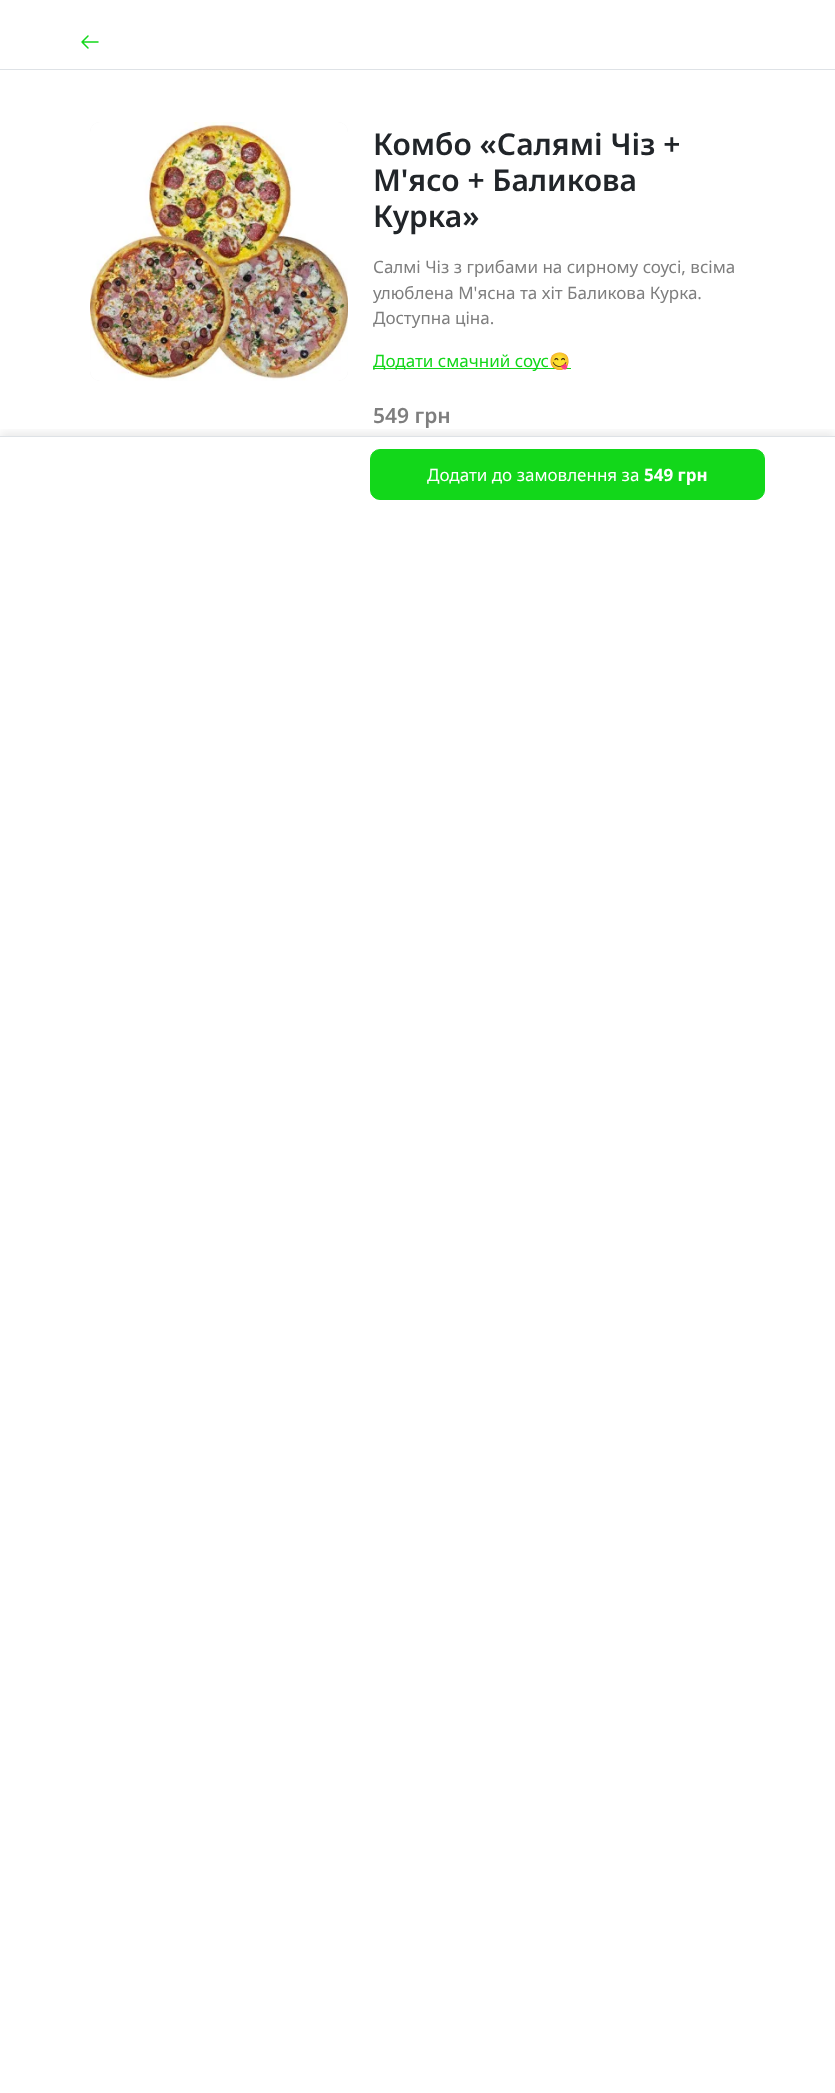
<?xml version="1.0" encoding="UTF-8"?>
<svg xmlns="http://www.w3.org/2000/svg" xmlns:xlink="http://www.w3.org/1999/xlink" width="835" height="2093">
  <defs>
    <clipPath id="clip1"><rect x="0" y="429" width="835" height="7" /></clipPath>
  </defs>
  <rect width="100%" height="100%" fill="#ffffff" />
  <rect y="69" width="835" height="1" fill="#dee2e6" />
  <path d="M 98 42 h -16 m 0 0 l 6 -6 m -6 6 l 6 6" fill="none" stroke="#12d71a" stroke-width="1.5" stroke-linecap="round" stroke-linejoin="round" />
  <rect x="90" y="122" width="258" height="259" rx="10" fill="#f4f4f4" />
  <image x="90" y="122" width="258" height="259" xlink:href="image1.png" />
  <rect x="373" y="368" width="198" height="1" fill="#12d71a" />
  <g clip-path="url(#clip1)">
    <rect y="432" width="835" height="80" fill="#000000" fill-opacity="0.08" filter="blur(4px)" />
  </g>
  <rect y="436" width="835" height="1" fill="#dee2e6" />
  <rect x="370.5" y="449.5" width="394" height="50" rx="9.5" fill="#12d71a" stroke="#12d71a" />
  <text x="373" y="155" style="font-family: Noto Sans; font-size: 30px; font-weight: 600; fill: #212529">Комбо «Салямі Чіз +</text>
  <text x="373" y="191" style="font-family: Noto Sans; font-size: 30px; font-weight: 600; fill: #212529">М'ясо + Баликова</text>
  <text x="373" y="227" style="font-family: Noto Sans; font-size: 30px; font-weight: 600; fill: #212529">Курка»</text>
  <text x="373" y="273" style="font-family: Noto Sans; font-size: 17px; fill: #7e7e7e">Салмі Чіз з грибами на сирному соусі, всіма</text>
  <text x="373" y="299" style="font-family: Noto Sans; font-size: 17px; fill: #7e7e7e">улюблена М'ясна та хіт Баликова Курка.</text>
  <text x="373" y="324" style="font-family: Noto Sans; font-size: 17px; fill: #7e7e7e">Доступна ціна.</text>
  <text x="373" y="367" style="font-family: Noto Sans; font-size: 17px; fill: #12d71a">Додати смачний соус</text>
  <text x="549" y="367" style="font-family: Noto Color Emoji; font-size: 17px; fill: #12d71a">😋</text>
  <text x="373" y="423" style="font-family: Noto Sans; font-size: 21px; font-weight: 600; fill: #7e7e7e">549 грн</text>
  <text x="427" y="481" style="font-family: Noto Sans; font-size: 17px; fill: #ffffff">Додати до замовлення за</text>
  <text x="644" y="481" style="font-family: Noto Sans; font-size: 17px; font-weight: bold; fill: #ffffff">549 грн</text>
</svg>
